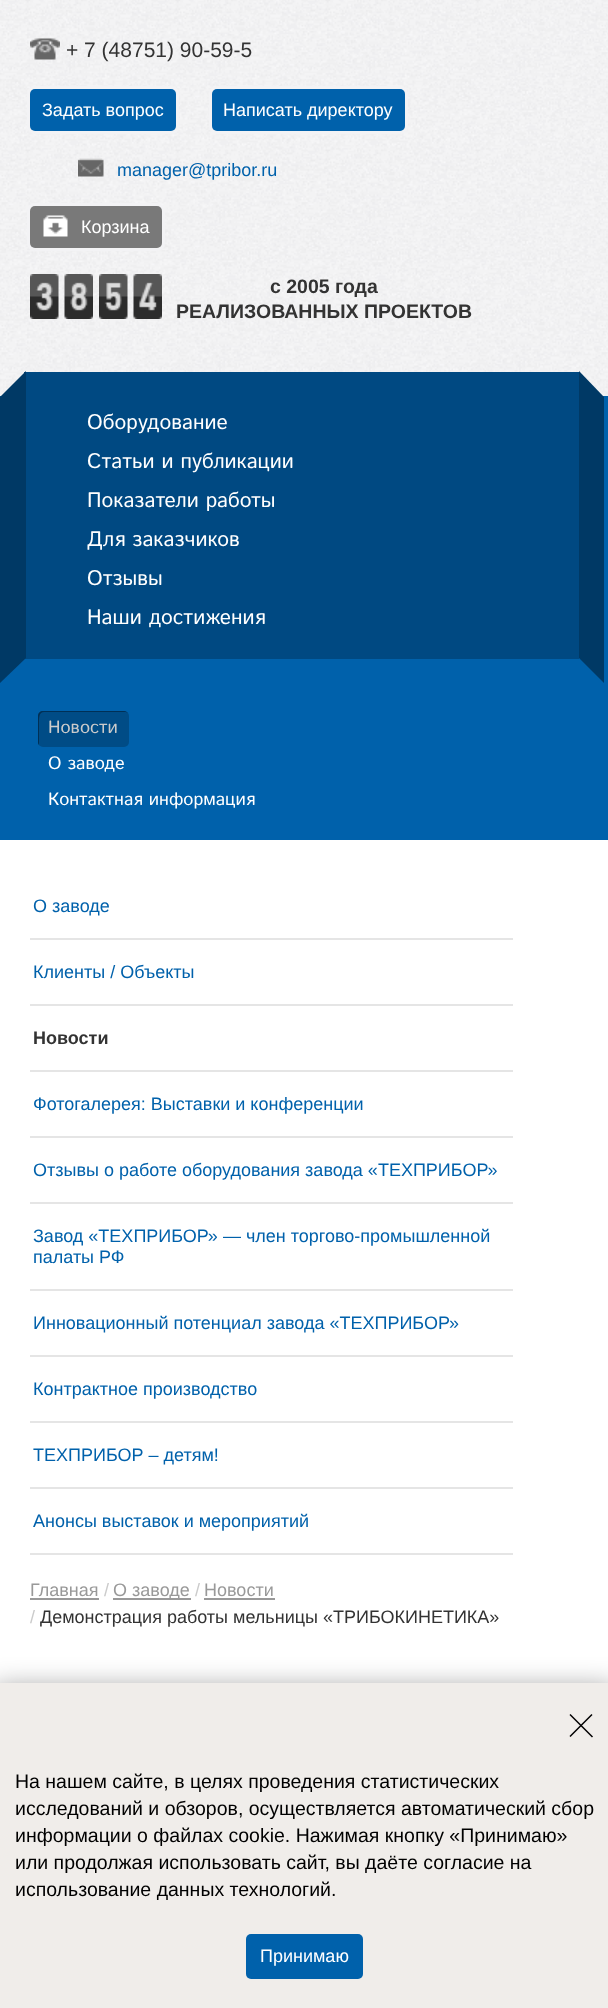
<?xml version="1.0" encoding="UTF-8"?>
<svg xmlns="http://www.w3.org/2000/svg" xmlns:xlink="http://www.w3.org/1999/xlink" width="608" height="2008">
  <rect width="100%" height="100%" fill="#ffffff" />
  <rect y="395" width="608" height="1" fill="#f2f2f3" />
  <image x="0" y="0" width="608" height="395" xlink:href="image1.png" />
  <image x="30" y="38" width="30" height="22" xlink:href="image2.png" />
  <rect x="28.5" y="87.5" width="149" height="45" rx="6.5" fill="none" stroke="#f3f3f5" stroke-width="3" />
  <rect x="30" y="89" width="146" height="42" rx="5" fill="#0061ab" />
  <rect x="210.5" y="87.5" width="196" height="45" rx="6.5" fill="none" stroke="#f3f3f5" stroke-width="3" />
  <rect x="212" y="89" width="193" height="42" rx="5" fill="#0061ab" />
  <image x="78" y="158" width="26" height="19" xlink:href="image3.png" />
  <rect x="28.5" y="204.5" width="135" height="45" rx="6.5" fill="none" stroke="#f3f3f5" stroke-width="3" />
  <rect x="30" y="206" width="132" height="42" rx="5" fill="#797979" />
  <image x="43" y="215" width="25" height="22" xlink:href="image4.png" />
  <image x="30" y="274" width="29" height="45" xlink:href="image5.png" />
  <image x="64" y="274" width="29" height="45" xlink:href="image6.png" />
  <image x="99" y="274" width="29" height="45" xlink:href="image7.png" />
  <image x="133" y="274" width="29" height="45" xlink:href="image8.png" />
  <rect y="396" width="608" height="444" fill="#0061ab" />
  <rect x="24" y="372" width="555" height="287" fill="#004982" />
  <path d="M 0 397 l 26 -26 v 287 l -26 25 z" fill="#003965" />
  <path d="M 579 371 l 25 26 v 286 l -25 -25 z" fill="#003965" />
  <rect x="38" y="711" width="91" height="36" rx="5" fill="#004c86" />
  <path d="M 44 712 h 82 l 2 1 c -1 -1 -2 -2 -4 -2 h -81 c -3 0 -5 2 -5 5 v 26 c 0 1 0 2 1 3 v -23 c 0 -4 0 -10 5 -10 z" fill="#002745" fill-opacity="0.75" />
  <rect x="30" y="938" width="483" height="2" fill="#e5e5e5" />
  <rect x="30" y="1004" width="483" height="2" fill="#e5e5e5" />
  <rect x="30" y="1070" width="483" height="2" fill="#e5e5e5" />
  <rect x="30" y="1136" width="483" height="2" fill="#e5e5e5" />
  <rect x="30" y="1202" width="483" height="2" fill="#e5e5e5" />
  <rect x="30" y="1289" width="483" height="2" fill="#e5e5e5" />
  <rect x="30" y="1355" width="483" height="2" fill="#e5e5e5" />
  <rect x="30" y="1421" width="483" height="2" fill="#e5e5e5" />
  <rect x="30" y="1487" width="483" height="2" fill="#e5e5e5" />
  <rect x="30" y="1553" width="483" height="2" fill="#e5e5e5" />
  <rect x="30" y="1598" width="69" height="2" fill="#999999" />
  <rect x="113" y="1598" width="78" height="2" fill="#999999" />
  <rect x="204" y="1598" width="71" height="2" fill="#999999" />
  <rect x="-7" y="1691" width="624" height="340" fill="#000000" fill-opacity="0.5" filter="blur(15px)" />
  <rect y="1683" width="608" height="325" fill="#f0edea" />
  <path d="M 570 1736.5 l 22 -22 m -22 0 l 22.5 22.5" fill="none" stroke="#000000" stroke-width="1.5" />
  <rect x="246" y="1934" width="117" height="45" rx="5" fill="#0061ab" />
  <text x="66" y="57" style="font-family: Liberation Sans; font-size: 21px; fill: #333333">+ 7 (48751) 90-59-5</text>
  <text x="42" y="116" style="font-family: Liberation Sans; font-size: 18px; fill: #ffffff">Задать вопрос</text>
  <text x="223" y="116" style="font-family: Liberation Sans; font-size: 18px; fill: #ffffff">Написать директору</text>
  <text x="117" y="176" style="font-family: Liberation Sans; font-size: 18px; fill: #0061ab">manager@tpribor.ru</text>
  <text x="81" y="233" style="font-family: Liberation Sans; font-size: 18px; fill: #ffffff">Корзина</text>
  <text x="270" y="293" style="font-family: Liberation Sans; font-size: 19.5px; font-weight: bold; fill: #333333">с 2005 года</text>
  <text x="176" y="318" style="font-family: Liberation Sans; font-size: 19.5px; font-weight: bold; fill: #333333">РЕАЛИЗОВАННЫХ ПРОЕКТОВ</text>
  <text x="87" y="429" style="font-family: Istok Web; font-size: 21px; fill: #ffffff">Оборудование</text>
  <text x="87" y="468" style="font-family: Istok Web; font-size: 21px; fill: #ffffff">Статьи и публикации</text>
  <text x="87" y="507" style="font-family: Istok Web; font-size: 21px; fill: #ffffff">Показатели работы</text>
  <text x="87" y="546" style="font-family: Istok Web; font-size: 21px; fill: #ffffff">Для заказчиков</text>
  <text x="87" y="585" style="font-family: Istok Web; font-size: 21px; fill: #ffffff">Отзывы</text>
  <text x="87" y="624" style="font-family: Istok Web; font-size: 21px; fill: #ffffff">Наши достижения</text>
  <text x="48" y="733" style="font-family: Istok Web; font-size: 18px; fill: #cbcbcb">Новости</text>
  <text x="48" y="769" style="font-family: Istok Web; font-size: 18px; fill: #ffffff">О заводе</text>
  <text x="48" y="805" style="font-family: Istok Web; font-size: 18px; fill: #ffffff">Контактная информация</text>
  <text x="33" y="912" style="font-family: Liberation Sans; font-size: 18px; fill: #0061ab">О заводе</text>
  <text x="33" y="978" style="font-family: Liberation Sans; font-size: 18px; fill: #0061ab">Клиенты / Объекты</text>
  <text x="33" y="1044" style="font-family: Liberation Sans; font-size: 18px; font-weight: bold; fill: #333333">Новости</text>
  <text x="33" y="1110" style="font-family: Liberation Sans; font-size: 18px; fill: #0061ab">Фотогалерея: Выставки и конференции</text>
  <text x="33" y="1176" style="font-family: Liberation Sans; font-size: 18px; fill: #0061ab">Отзывы о работе оборудования завода «ТЕХПРИБОР»</text>
  <text x="33" y="1242" style="font-family: Liberation Sans; font-size: 18px; fill: #0061ab">Завод «ТЕХПРИБОР» — член торгово-промышленной</text>
  <text x="33" y="1263" style="font-family: Liberation Sans; font-size: 18px; fill: #0061ab">палаты РФ</text>
  <text x="33" y="1329" style="font-family: Liberation Sans; font-size: 18px; fill: #0061ab">Инновационный потенциал завода «ТЕХПРИБОР»</text>
  <text x="33" y="1395" style="font-family: Liberation Sans; font-size: 18px; fill: #0061ab">Контрактное производство</text>
  <text x="33" y="1461" style="font-family: Liberation Sans; font-size: 18px; fill: #0061ab">ТЕХПРИБОР – детям!</text>
  <text x="33" y="1527" style="font-family: Liberation Sans; font-size: 18px; fill: #0061ab">Анонсы выставок и мероприятий</text>
  <text x="30" y="1596" style="font-family: Liberation Sans; font-size: 18px; fill: #999999">Главная</text>
  <text x="104" y="1596" style="font-family: Liberation Sans; font-size: 18px; fill: #cbcbcb">/</text>
  <text x="113" y="1596" style="font-family: Liberation Sans; font-size: 18px; fill: #999999">О заводе</text>
  <text x="195" y="1596" style="font-family: Liberation Sans; font-size: 18px; fill: #cbcbcb">/</text>
  <text x="204" y="1596" style="font-family: Liberation Sans; font-size: 18px; fill: #999999">Новости</text>
  <text x="30" y="1623" style="font-family: Liberation Sans; font-size: 18px; fill: #cbcbcb">/</text>
  <text x="40" y="1623" style="font-family: Liberation Sans; font-size: 18px; fill: #333333">Демонстрация работы мельницы «ТРИБОКИНЕТИКА»</text>
  <text x="15" y="1788" style="font-family: Liberation Sans; font-size: 19.5px; fill: #000000">На нашем сайте, в целях проведения статистических</text>
  <text x="15" y="1815" style="font-family: Liberation Sans; font-size: 19.5px; fill: #000000">исследований и обзоров, осуществляется автоматический сбор</text>
  <text x="15" y="1842" style="font-family: Liberation Sans; font-size: 19.5px; fill: #000000">информации о файлах cookie. Нажимая кнопку «Принимаю»</text>
  <text x="15" y="1869" style="font-family: Liberation Sans; font-size: 19.5px; fill: #000000">или продолжая использовать сайт, вы даёте согласие на</text>
  <text x="15" y="1896" style="font-family: Liberation Sans; font-size: 19.5px; fill: #000000">использование данных технологий.</text>
  <text x="260" y="1962" style="font-family: Liberation Sans; font-size: 18px; fill: #ffffff">Принимаю</text>
</svg>
